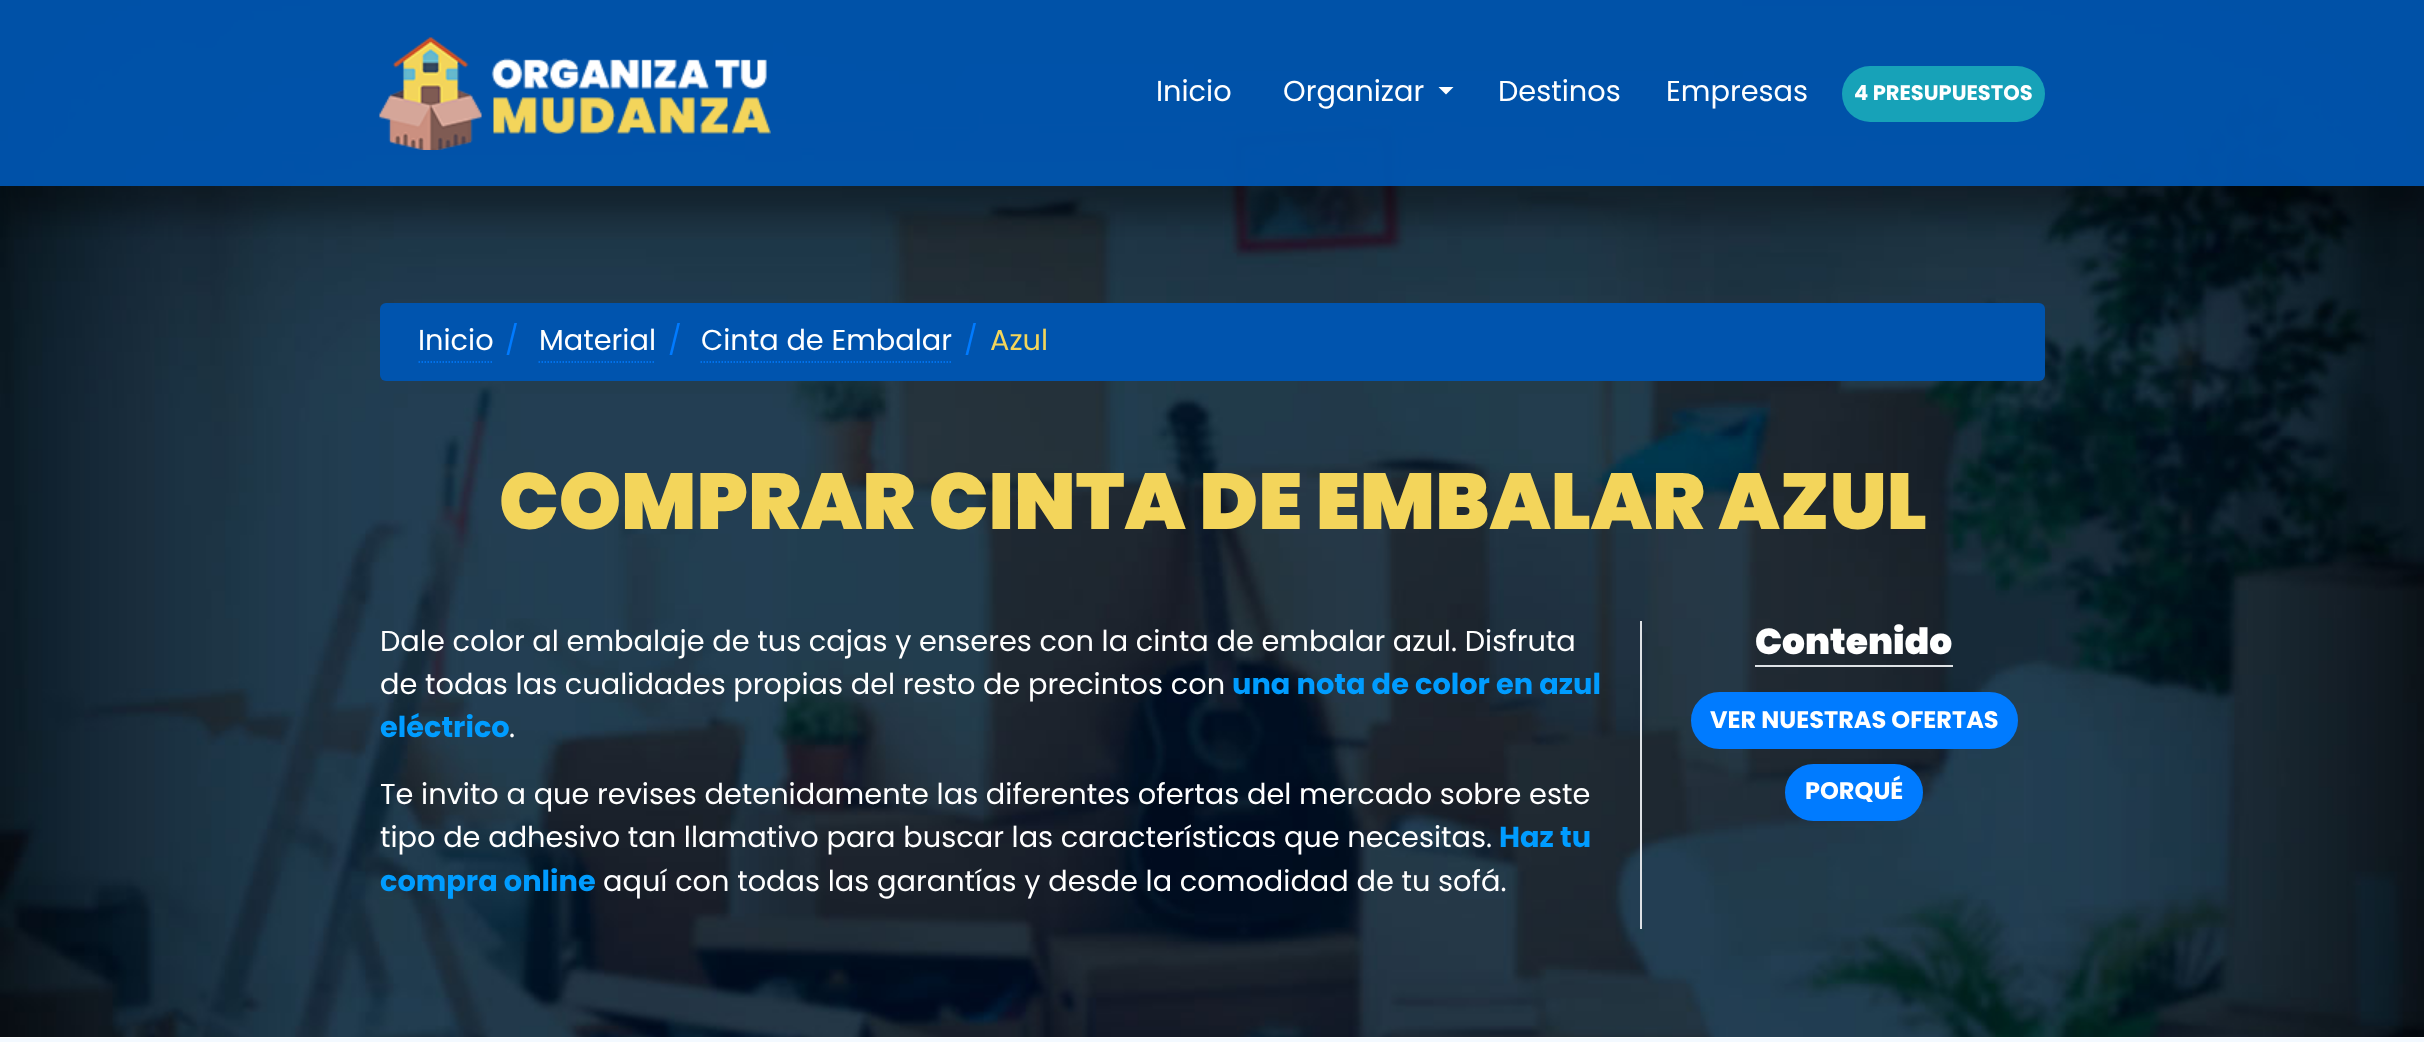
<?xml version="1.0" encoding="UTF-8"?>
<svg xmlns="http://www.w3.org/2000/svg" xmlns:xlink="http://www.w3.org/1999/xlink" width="2424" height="1042">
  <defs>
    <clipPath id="clip1"><rect x="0" y="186" width="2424" height="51" /></clipPath>
  </defs>
  <rect width="100%" height="100%" fill="#ffffff" />
  <image x="0" y="0" width="2424" height="1037" xlink:href="image2.png" />
  <g clip-path="url(#clip1)">
    <rect y="29" width="2424" height="186" fill="#000000" fill-opacity="0.3" filter="blur(14.5px)" />
  </g>
  <rect width="2424" height="186" fill="#0054ae" fill-opacity="0.96" />
  <image x="379" y="37" width="392" height="113" xlink:href="image1.png" />
  <path d="M 1438.5 87 h 15 l -7.5 7.5 z" fill="#ffffff" />
  <rect x="1842" y="66" width="203" height="56" rx="28" fill="#17a2b8" />
  <rect x="380" y="303" width="1665" height="78" rx="6" fill="#0054ae" />
  <path d="M 418.5 362 h 75" fill="none" stroke="#007bff" stroke-width="1.5" stroke-dasharray="1.5 1.5" />
  <path d="M 538.5 362 h 117" fill="none" stroke="#007bff" stroke-width="1.5" stroke-dasharray="1.5 1.5" />
  <path d="M 700.5 362 h 252" fill="none" stroke="#007bff" stroke-width="1.5" stroke-dasharray="1.5 1.5" />
  <rect x="1640" y="621" width="2" height="308" fill="#dee2e6" />
  <rect x="1755" y="665" width="198" height="2" fill="#dee2e6" />
  <rect x="1692" y="693" width="325" height="55" rx="27.5" fill="#007bff" stroke="#007bff" stroke-width="2" />
  <rect x="1786" y="765" width="136" height="55" rx="27.5" fill="#007bff" stroke="#007bff" stroke-width="2" />
  <rect y="1038" width="2424" height="4" fill="#f3f9ff" />
  <text x="1156" y="101" style="font-family: Poppins; font-size: 28.8px; fill: #ffffff">Inicio</text>
  <text x="1283" y="101" style="font-family: Poppins; font-size: 28.8px; fill: #ffffff">Organizar</text>
  <text x="1498" y="101" style="font-family: Poppins; font-size: 28.8px; fill: #ffffff">Destinos</text>
  <text x="1666" y="101" style="font-family: Poppins; font-size: 28.8px; fill: #ffffff">Empresas</text>
  <text x="1854" y="100" style="font-family: Poppins; font-size: 21px; font-weight: bold; fill: #ffffff">4 PRESUPUESTOS</text>
  <text x="418" y="350" style="font-family: Poppins; font-size: 28.8px; fill: #ffffff">Inicio</text>
  <text x="505" y="350" style="font-family: Poppins; font-size: 28.8px; fill: #007bff">/</text>
  <text x="539" y="350" style="font-family: Poppins; font-size: 28.8px; fill: #ffffff">Material</text>
  <text x="668" y="350" style="font-family: Poppins; font-size: 28.8px; fill: #007bff">/</text>
  <text x="701" y="350" style="font-family: Poppins; font-size: 28.8px; fill: #ffffff">Cinta de Embalar</text>
  <text x="964" y="350" style="font-family: Poppins; font-size: 28.8px; fill: #007bff">/</text>
  <text x="990" y="350" style="font-family: Poppins; font-size: 28.8px; fill: #f3d55b">Azul</text>
  <text x="499" y="529" style="font-family: Poppins; font-size: 79.25px; font-weight: 900; fill: #f3d55b">COMPRAR CINTA DE EMBALAR AZUL</text>
  <text x="380" y="651" style="font-family: Poppins; font-size: 28.8px; fill: #ffffff">Dale color al embalaje de tus cajas y enseres con la cinta de embalar azul. Disfruta</text>
  <text x="380" y="694" style="font-family: Poppins; font-size: 28.8px; fill: #ffffff">de todas las cualidades propias del resto de precintos con</text>
  <text x="1232" y="694" style="font-family: Poppins; font-size: 28.8px; font-weight: bold; fill: #009cff">una nota de color en azul</text>
  <text x="380" y="737" style="font-family: Poppins; font-size: 28.8px; font-weight: bold; fill: #009cff">eléctrico</text>
  <text x="509" y="737" style="font-family: Poppins; font-size: 28.8px; fill: #ffffff">.</text>
  <text x="380" y="804" style="font-family: Poppins; font-size: 28.8px; fill: #ffffff">Te invito a que revises detenidamente las diferentes ofertas del mercado sobre este</text>
  <text x="380" y="847" style="font-family: Poppins; font-size: 28.8px; fill: #ffffff">tipo de adhesivo tan llamativo para buscar las características que necesitas.</text>
  <text x="1499" y="847" style="font-family: Poppins; font-size: 28.8px; font-weight: bold; fill: #009cff">Haz tu</text>
  <text x="380" y="891" style="font-family: Poppins; font-size: 28.8px; font-weight: bold; fill: #009cff">compra online</text>
  <text x="603" y="891" style="font-family: Poppins; font-size: 28.8px; fill: #ffffff">aquí con todas las garantías y desde la comodidad de tu sofá.</text>
  <text x="1755" y="654" style="font-family: Poppins; font-size: 36px; font-weight: 900; fill: #ffffff">Contenido</text>
  <text x="1710" y="728" style="font-family: Poppins; font-size: 24px; font-weight: bold; fill: #ffffff">VER NUESTRAS OFERTAS</text>
  <text x="1805" y="799" style="font-family: Poppins; font-size: 24px; font-weight: bold; fill: #ffffff">PORQUÉ</text>
</svg>
